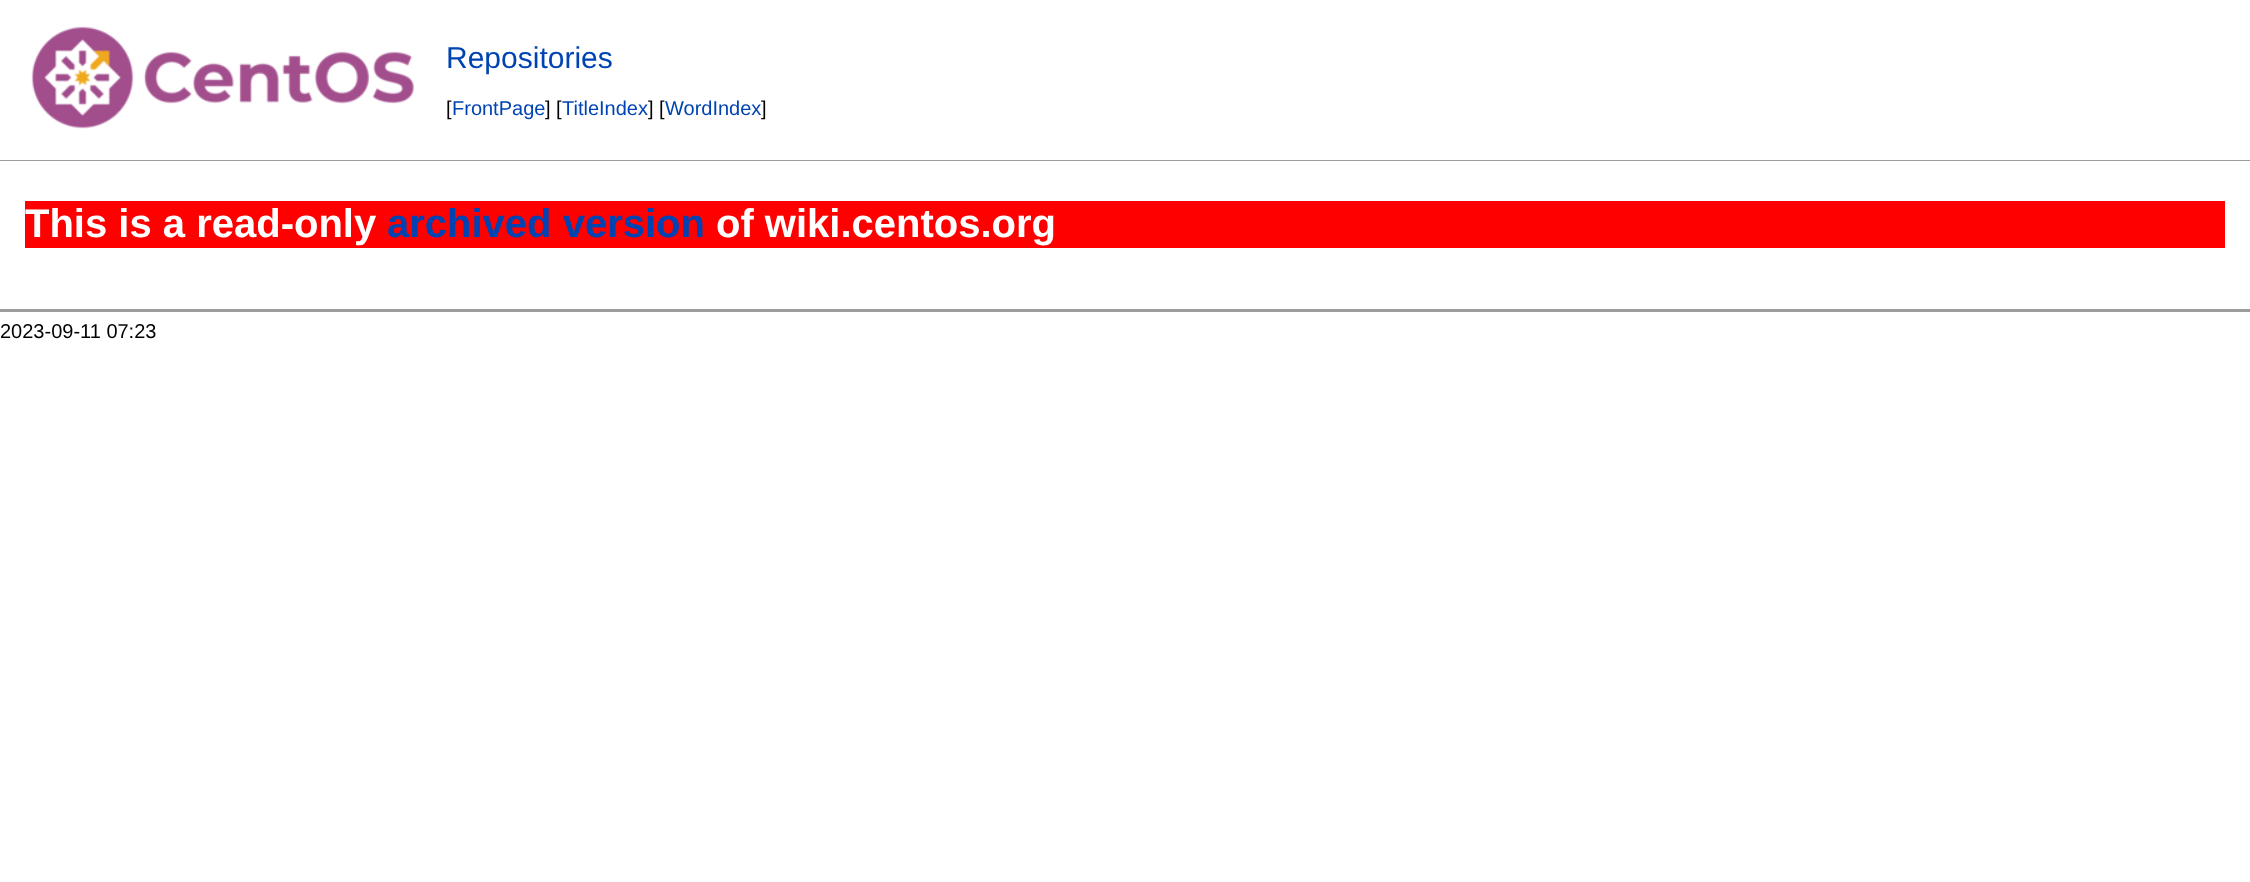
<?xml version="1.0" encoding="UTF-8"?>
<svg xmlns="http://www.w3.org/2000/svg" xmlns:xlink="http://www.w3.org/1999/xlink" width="2250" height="882">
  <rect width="100%" height="100%" fill="#ffffff" />
  <image x="31" y="26" width="383" height="103" xlink:href="image1.png" />
  <rect y="160" width="2250" height="1" fill="#9c9c9c" />
  <rect x="25" y="201" width="2200" height="47" fill="#ff0000" />
  <rect y="309" width="2250" height="3" fill="#9c9c9c" />
  <text x="446" y="68" style="font-family: Liberation Sans; font-size: 30px; fill: #0044b3">Repositories</text>
  <text x="446" y="115" style="font-family: Liberation Sans; font-size: 20px; fill: #000000">[</text>
  <text x="452" y="115" style="font-family: Liberation Sans; font-size: 20px; fill: #0044b3">FrontPage</text>
  <text x="545" y="115" style="font-family: Liberation Sans; font-size: 20px; fill: #000000">] [</text>
  <text x="562" y="115" style="font-family: Liberation Sans; font-size: 20px; fill: #0044b3">TitleIndex</text>
  <text x="648" y="115" style="font-family: Liberation Sans; font-size: 20px; fill: #000000">] [</text>
  <text x="665" y="115" style="font-family: Liberation Sans; font-size: 20px; fill: #0044b3">WordIndex</text>
  <text x="761" y="115" style="font-family: Liberation Sans; font-size: 20px; fill: #000000">]</text>
  <text x="25" y="237" style="font-family: Liberation Sans; font-size: 40px; font-weight: bold; fill: #ffffff">This is a read-only</text>
  <text x="387" y="237" style="font-family: Liberation Sans; font-size: 40px; font-weight: bold; fill: #0044b3">archived version</text>
  <text x="716" y="237" style="font-family: Liberation Sans; font-size: 40px; font-weight: bold; fill: #ffffff">of wiki.centos.org</text>
  <text x="0" y="338" style="font-family: Liberation Sans; font-size: 20px; fill: #000000">2023-09-11 07:23</text>
</svg>
